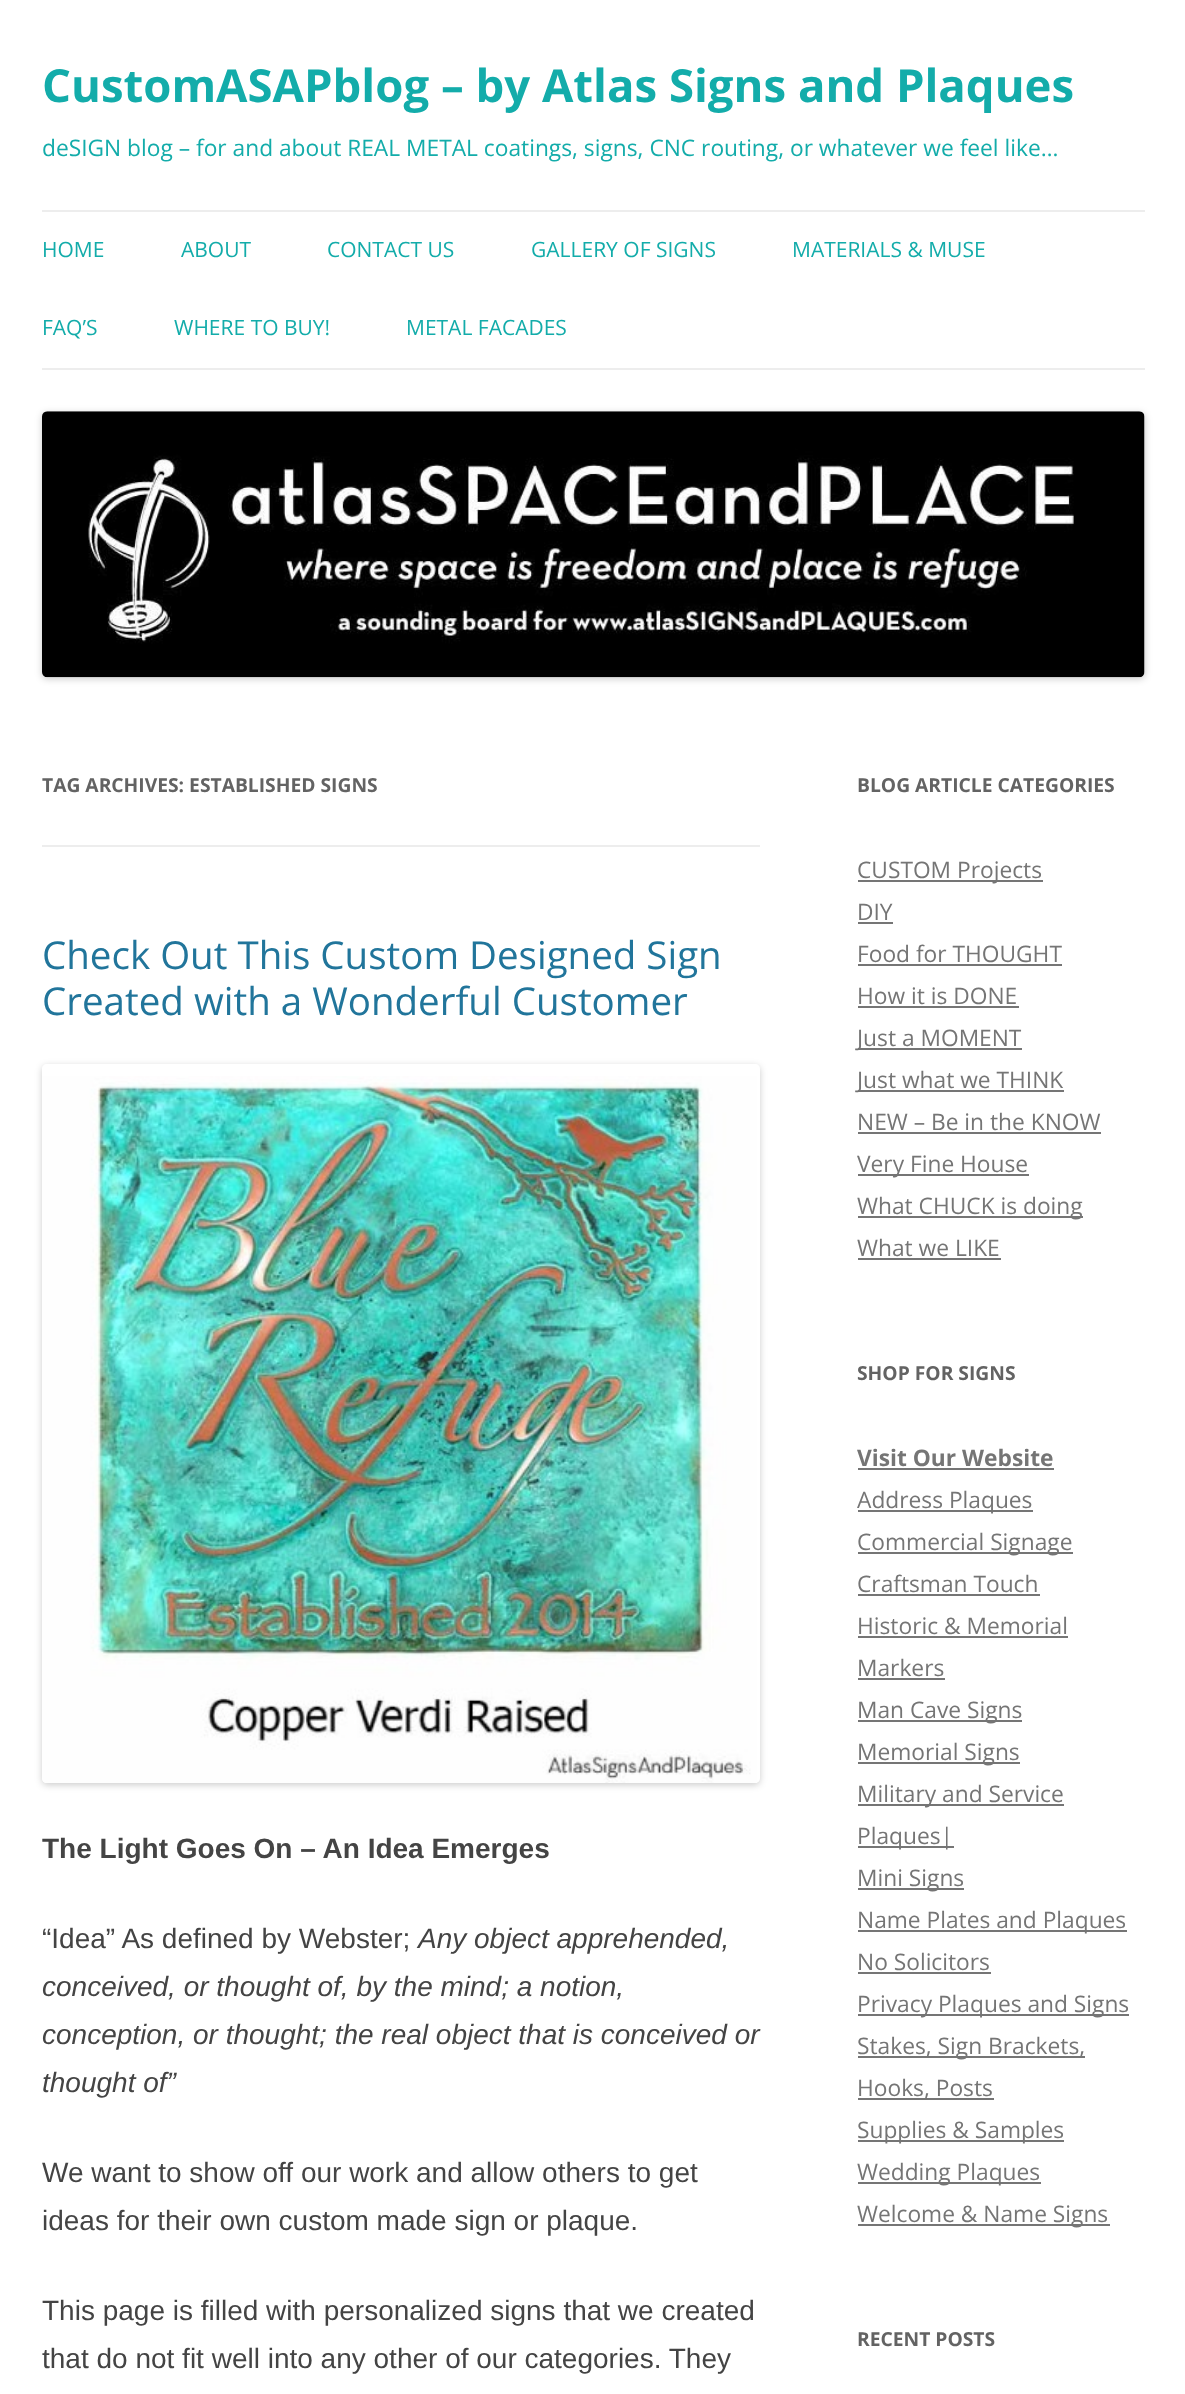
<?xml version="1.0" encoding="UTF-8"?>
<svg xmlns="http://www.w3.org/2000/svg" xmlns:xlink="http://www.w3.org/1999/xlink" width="1185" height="2394">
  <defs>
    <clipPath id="clip1"><path d="M 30 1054 h 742 v 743 h -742 z m 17 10 h 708 c 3 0 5 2 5 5 v 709 c 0 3 -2 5 -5 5 h -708 c -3 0 -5 -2 -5 -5 v -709 c 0 -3 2 -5 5 -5 z" clip-rule="evenodd" /></clipPath>
  </defs>
  <rect width="100%" height="100%" fill="#ffffff" />
  <rect x="42" y="210" width="1103" height="2" fill="#ededed" />
  <rect x="42" y="368" width="1103" height="2" fill="#ededed" />
  <rect x="42" y="413" width="1103" height="266" rx="5" fill="#000000" fill-opacity="0.2" filter="blur(3.5px)" />
  <image x="42" y="411" width="1103" height="267" xlink:href="image1.png" />
  <rect x="42" y="845" width="718" height="2" fill="#ededed" />
  <g clip-path="url(#clip1)">
    <rect x="42" y="1066" width="718" height="719" rx="5" fill="#000000" fill-opacity="0.2" filter="blur(3.5px)" />
  </g>
  <image x="42" y="1076" width="715" height="707" xlink:href="image2.png" />
  <rect x="858" y="880" width="185" height="2" fill="#757575" />
  <rect x="858" y="922" width="35" height="2" fill="#757575" />
  <rect x="858" y="964" width="204" height="2" fill="#757575" />
  <rect x="858" y="1006" width="161" height="2" fill="#757575" />
  <rect x="858" y="1048" width="164" height="2" fill="#757575" />
  <rect x="858" y="1090" width="206" height="2" fill="#757575" />
  <rect x="858" y="1132" width="243" height="2" fill="#757575" />
  <rect x="858" y="1174" width="171" height="2" fill="#757575" />
  <rect x="858" y="1216" width="225" height="2" fill="#757575" />
  <rect x="858" y="1258" width="143" height="2" fill="#757575" />
  <rect x="858" y="1468" width="196" height="2" fill="#757575" />
  <rect x="858" y="1510" width="175" height="2" fill="#757575" />
  <rect x="858" y="1552" width="215" height="2" fill="#757575" />
  <rect x="858" y="1594" width="182" height="2" fill="#757575" />
  <rect x="858" y="1636" width="210" height="2" fill="#757575" />
  <rect x="858" y="1678" width="87" height="2" fill="#757575" />
  <rect x="858" y="1720" width="164" height="2" fill="#757575" />
  <rect x="858" y="1762" width="162" height="2" fill="#757575" />
  <rect x="858" y="1804" width="206" height="2" fill="#757575" />
  <rect x="858" y="1846" width="96" height="2" fill="#757575" />
  <rect x="858" y="1888" width="106" height="2" fill="#757575" />
  <rect x="858" y="1930" width="269" height="2" fill="#757575" />
  <rect x="858" y="1972" width="133" height="2" fill="#757575" />
  <rect x="858" y="2014" width="271" height="2" fill="#757575" />
  <rect x="858" y="2056" width="227" height="2" fill="#757575" />
  <rect x="858" y="2098" width="136" height="2" fill="#757575" />
  <rect x="858" y="2140" width="206" height="2" fill="#757575" />
  <rect x="858" y="2182" width="183" height="2" fill="#757575" />
  <rect x="858" y="2224" width="252" height="2" fill="#757575" />
  <text x="42" y="102" style="font-family: Open Sans; font-size: 45.5px; font-weight: bold; fill: #13acaa">CustomASAPblog – by Atlas Signs and Plaques</text>
  <text x="42" y="156" style="font-family: Open Sans; font-size: 22.75px; fill: #13acaa">deSIGN blog – for and about REAL METAL coatings, signs, CNC routing, or whatever we feel like…</text>
  <text x="42" y="257" style="font-family: Open Sans; font-size: 21px; fill: #13acaa">HOME</text>
  <text x="181" y="257" style="font-family: Open Sans; font-size: 21px; fill: #13acaa">ABOUT</text>
  <text x="327" y="257" style="font-family: Open Sans; font-size: 21px; fill: #13acaa">CONTACT US</text>
  <text x="531" y="257" style="font-family: Open Sans; font-size: 21px; fill: #13acaa">GALLERY OF SIGNS</text>
  <text x="792" y="257" style="font-family: Open Sans; font-size: 21px; fill: #13acaa">MATERIALS &amp; MUSE</text>
  <text x="42" y="335" style="font-family: Open Sans; font-size: 21px; fill: #13acaa">FAQ’S</text>
  <text x="174" y="335" style="font-family: Open Sans; font-size: 21px; fill: #13acaa">WHERE TO BUY!</text>
  <text x="406" y="335" style="font-family: Open Sans; font-size: 21px; fill: #13acaa">METAL FACADES</text>
  <text x="42" y="792" style="font-family: Open Sans; font-size: 19.25px; font-weight: bold; fill: #636363">TAG ARCHIVES: ESTABLISHED SIGNS</text>
  <text x="42" y="969" style="font-family: Open Sans; font-size: 38.5px; fill: #21759b">Check Out This Custom Designed Sign</text>
  <text x="42" y="1015" style="font-family: Open Sans; font-size: 38.5px; fill: #21759b">Created with a Wonderful Customer</text>
  <text x="42" y="1858" style="font-family: Liberation Sans; font-size: 28px; font-weight: bold; fill: #444444">The Light Goes On – An Idea Emerges</text>
  <text x="42" y="1948" style="font-family: Liberation Sans; font-size: 28px; fill: #444444">“Idea” As defined by Webster;</text>
  <text x="418" y="1948" style="font-family: Liberation Sans; font-size: 28px; font-style: italic; fill: #444444">Any object apprehended,</text>
  <text x="42" y="1996" style="font-family: Liberation Sans; font-size: 28px; font-style: italic; fill: #444444">conceived, or thought of, by the mind; a notion,</text>
  <text x="42" y="2044" style="font-family: Liberation Sans; font-size: 28px; font-style: italic; fill: #444444">conception, or thought; the real object that is conceived or</text>
  <text x="42" y="2092" style="font-family: Liberation Sans; font-size: 28px; font-style: italic; fill: #444444">thought of”</text>
  <text x="42" y="2182" style="font-family: Liberation Sans; font-size: 28px; fill: #444444">We want to show off our work and allow others to get</text>
  <text x="42" y="2230" style="font-family: Liberation Sans; font-size: 28px; fill: #444444">ideas for their own custom made sign or plaque.</text>
  <text x="42" y="2320" style="font-family: Liberation Sans; font-size: 28px; fill: #444444">This page is filled with personalized signs that we created</text>
  <text x="42" y="2368" style="font-family: Liberation Sans; font-size: 28px; fill: #444444">that do not fit well into any other of our categories. They</text>
  <text x="857" y="792" style="font-family: Open Sans; font-size: 19.25px; font-weight: bold; fill: #636363">BLOG ARTICLE CATEGORIES</text>
  <text x="857" y="878" style="font-family: Open Sans; font-size: 22.75px; fill: #757575">CUSTOM Projects</text>
  <text x="857" y="920" style="font-family: Open Sans; font-size: 22.75px; fill: #757575">DIY</text>
  <text x="857" y="962" style="font-family: Open Sans; font-size: 22.75px; fill: #757575">Food for THOUGHT</text>
  <text x="857" y="1004" style="font-family: Open Sans; font-size: 22.75px; fill: #757575">How it is DONE</text>
  <text x="857" y="1046" style="font-family: Open Sans; font-size: 22.75px; fill: #757575">Just a MOMENT</text>
  <text x="857" y="1088" style="font-family: Open Sans; font-size: 22.75px; fill: #757575">Just what we THINK</text>
  <text x="857" y="1130" style="font-family: Open Sans; font-size: 22.75px; fill: #757575">NEW – Be in the KNOW</text>
  <text x="857" y="1172" style="font-family: Open Sans; font-size: 22.75px; fill: #757575">Very Fine House</text>
  <text x="857" y="1214" style="font-family: Open Sans; font-size: 22.75px; fill: #757575">What CHUCK is doing</text>
  <text x="857" y="1256" style="font-family: Open Sans; font-size: 22.75px; fill: #757575">What we LIKE</text>
  <text x="857" y="1380" style="font-family: Open Sans; font-size: 19.25px; font-weight: bold; fill: #636363">SHOP FOR SIGNS</text>
  <text x="857" y="1466" style="font-family: Open Sans; font-size: 22.75px; font-weight: bold; fill: #757575">Visit Our Website</text>
  <text x="857" y="1508" style="font-family: Open Sans; font-size: 22.75px; fill: #757575">Address Plaques</text>
  <text x="857" y="1550" style="font-family: Open Sans; font-size: 22.75px; fill: #757575">Commercial Signage</text>
  <text x="857" y="1592" style="font-family: Open Sans; font-size: 22.75px; fill: #757575">Craftsman Touch</text>
  <text x="857" y="1634" style="font-family: Open Sans; font-size: 22.75px; fill: #757575">Historic &amp; Memorial</text>
  <text x="857" y="1676" style="font-family: Open Sans; font-size: 22.75px; fill: #757575">Markers</text>
  <text x="857" y="1718" style="font-family: Open Sans; font-size: 22.75px; fill: #757575">Man Cave Signs</text>
  <text x="857" y="1760" style="font-family: Open Sans; font-size: 22.75px; fill: #757575">Memorial Signs</text>
  <text x="857" y="1802" style="font-family: Open Sans; font-size: 22.75px; fill: #757575">Military and Service</text>
  <text x="857" y="1844" style="font-family: Open Sans; font-size: 22.75px; fill: #757575">Plaques|</text>
  <text x="857" y="1886" style="font-family: Open Sans; font-size: 22.75px; fill: #757575">Mini Signs</text>
  <text x="857" y="1928" style="font-family: Open Sans; font-size: 22.75px; fill: #757575">Name Plates and Plaques</text>
  <text x="857" y="1970" style="font-family: Open Sans; font-size: 22.75px; fill: #757575">No Solicitors</text>
  <text x="857" y="2012" style="font-family: Open Sans; font-size: 22.75px; fill: #757575">Privacy Plaques and Signs</text>
  <text x="857" y="2054" style="font-family: Open Sans; font-size: 22.75px; fill: #757575">Stakes, Sign Brackets,</text>
  <text x="857" y="2096" style="font-family: Open Sans; font-size: 22.75px; fill: #757575">Hooks, Posts</text>
  <text x="857" y="2138" style="font-family: Open Sans; font-size: 22.75px; fill: #757575">Supplies &amp; Samples</text>
  <text x="857" y="2180" style="font-family: Open Sans; font-size: 22.75px; fill: #757575">Wedding Plaques</text>
  <text x="857" y="2222" style="font-family: Open Sans; font-size: 22.75px; fill: #757575">Welcome &amp; Name Signs</text>
  <text x="857" y="2346" style="font-family: Open Sans; font-size: 19.25px; font-weight: bold; fill: #636363">RECENT POSTS</text>
</svg>
